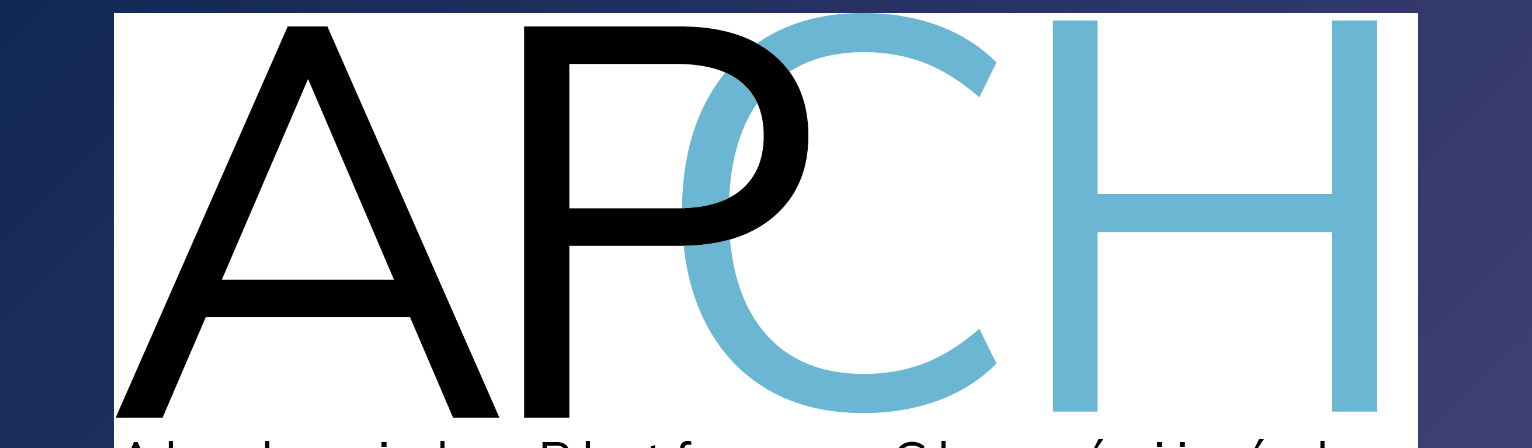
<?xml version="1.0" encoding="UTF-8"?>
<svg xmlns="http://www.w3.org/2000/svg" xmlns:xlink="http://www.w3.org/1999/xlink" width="1532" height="448">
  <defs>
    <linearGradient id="g1" gradientUnits="userSpaceOnUse" x1="238" y1="-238" x2="1294" y2="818"><stop offset="0" stop-color="#112855" /><stop offset="1" stop-color="#424077" /></linearGradient>
  </defs>
  <rect width="100%" height="100%" fill="#ffffff" />
  <rect width="1532" height="448" fill="url(#g1)" />
  <image x="114" y="13" width="1304" height="435" xlink:href="image1.png" />
</svg>
